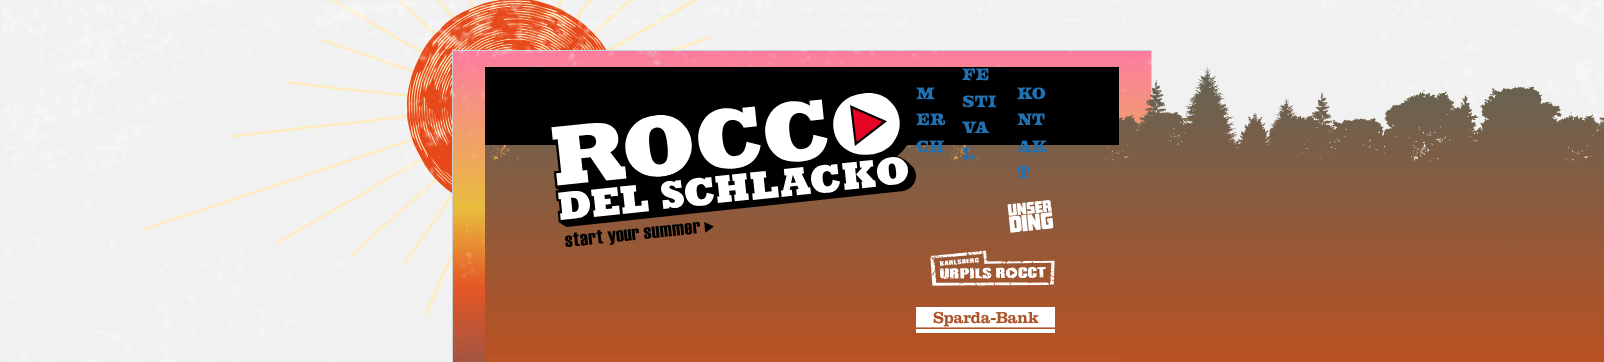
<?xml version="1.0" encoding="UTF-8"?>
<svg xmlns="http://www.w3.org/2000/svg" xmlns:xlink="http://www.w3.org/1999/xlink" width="1604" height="362">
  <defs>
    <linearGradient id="g1" gradientUnits="userSpaceOnUse" x1="802" y1="51" x2="802" y2="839"><stop offset="0" stop-color="#fc7ca0" /><stop offset="0.2" stop-color="#e8bc3c" /><stop offset="0.3" stop-color="#e55626" /><stop offset="0.5" stop-color="#59535c" /><stop offset="0.6" stop-color="#0a527b" /><stop offset="0.8" stop-color="#00003a" /><stop offset="1" stop-color="#e55626" /></linearGradient>
  </defs>
  <rect width="100%" height="100%" fill="#f1f1f1" />
  <image x="143" y="0" width="568" height="317" xlink:href="image2.png" />
  <rect x="453" y="51" width="698" height="311" fill="url(#g1)" />
  <rect x="452.5" y="50.5" width="699" height="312" fill="none" stroke="#ccd0d4" />
  <image x="3" y="0" width="1599" height="362" xlink:href="image1.png" />
  <image x="485" y="67" width="1119" height="295" xlink:href="image3.png" />
  <rect x="485" y="67" width="634" height="78" fill="#000000" />
  <image x="551" y="93" width="365" height="154" xlink:href="image4.png" />
  <image x="1007" y="200" width="47" height="33" xlink:href="image5.png" />
  <image x="930" y="250" width="125" height="36" xlink:href="image6.png" />
  <image x="916" y="307" width="139" height="26" xlink:href="image7.png" />
  <text x="916" y="99" style="font-family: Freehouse; font-size: 18px; fill: #2271b1">M</text>
  <text x="916" y="125" style="font-family: Freehouse; font-size: 18px; fill: #2271b1">ER</text>
  <text x="916" y="152" style="font-family: Freehouse; font-size: 18px; fill: #2271b1">CH</text>
  <text x="962" y="80" style="font-family: Freehouse; font-size: 18px; fill: #2271b1">FE</text>
  <text x="962" y="107" style="font-family: Freehouse; font-size: 18px; fill: #2271b1">STI</text>
  <text x="962" y="133" style="font-family: Freehouse; font-size: 18px; fill: #2271b1">VA</text>
  <text x="962" y="159" style="font-family: Freehouse; font-size: 18px; fill: #2271b1">L</text>
  <text x="1017" y="99" style="font-family: Freehouse; font-size: 18px; fill: #2271b1">KO</text>
  <text x="1017" y="125" style="font-family: Freehouse; font-size: 18px; fill: #2271b1">NT</text>
  <text x="1017" y="152" style="font-family: Freehouse; font-size: 18px; fill: #2271b1">AK</text>
  <text x="1017" y="178" style="font-family: Freehouse; font-size: 18px; fill: #2271b1">T</text>
</svg>
